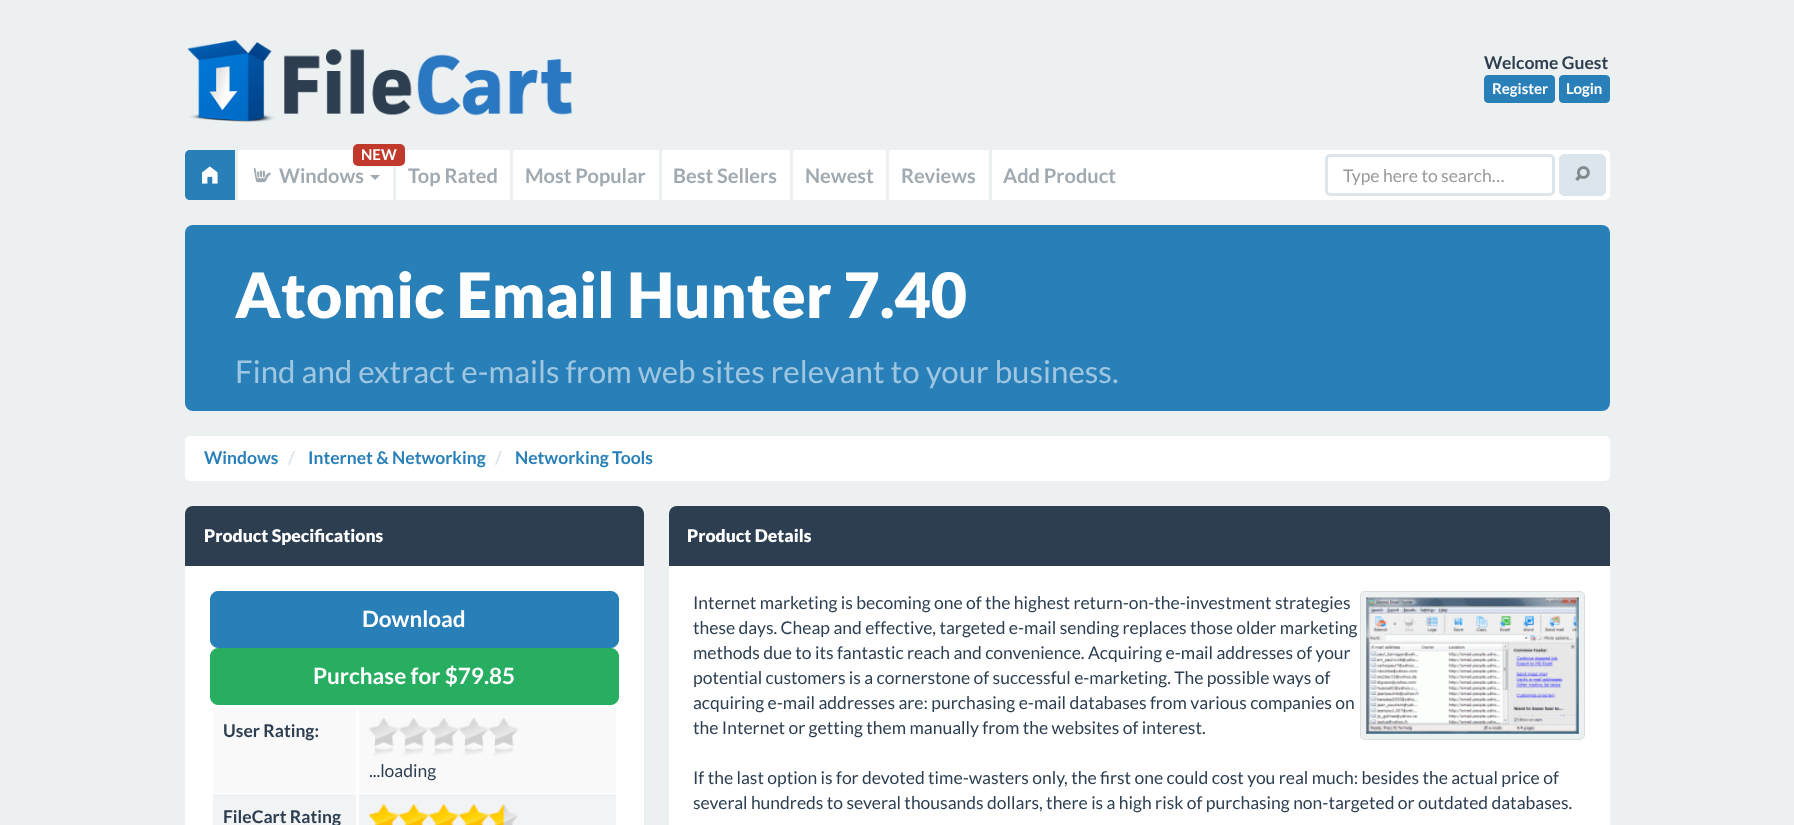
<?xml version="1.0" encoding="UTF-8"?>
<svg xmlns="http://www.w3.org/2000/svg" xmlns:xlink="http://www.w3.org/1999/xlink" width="1794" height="825">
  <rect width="100%" height="100%" fill="#ecf0f1" />
  <image x="187" y="40" width="386" height="82" xlink:href="image1.png" />
  <rect x="1484.5" y="75.5" width="70" height="27" rx="3.5" fill="#2980b9" stroke="#2980b9" />
  <rect x="1559.5" y="75.5" width="50" height="27" rx="3.5" fill="#2980b9" stroke="#2980b9" />
  <rect x="185" y="150" width="1425" height="50" rx="5" fill="#ffffff" />
  <path d="M 190 150 h 45 v 50 h -45 c -3 0 -5 -2 -5 -5 v -40 c 0 -3 2 -5 5 -5 z" fill="#2980b9" />
  <image x="202" y="166" width="16" height="18" xlink:href="image2.png" />
  <rect x="235" y="150" width="3" height="50" fill="#ecf0f1" />
  <rect x="353" y="144" width="52" height="22" rx="5" fill="#c0392b" />
  <image x="253" y="167" width="18" height="16" xlink:href="image3.png" />
  <path d="M 370 175 h 10 l -5 5 z" fill="#a1aab0" />
  <rect x="393" y="166" width="3" height="34" fill="#ecf0f1" />
  <rect x="510" y="150" width="3" height="50" fill="#ecf0f1" />
  <rect x="659" y="150" width="3" height="50" fill="#ecf0f1" />
  <rect x="790" y="150" width="3" height="50" fill="#ecf0f1" />
  <rect x="886" y="150" width="3" height="50" fill="#ecf0f1" />
  <rect x="989" y="150" width="3" height="50" fill="#ecf0f1" />
  <rect x="1326.5" y="155.5" width="227" height="39" rx="3.5" fill="none" stroke="#dce4ec" stroke-width="3" />
  <rect x="1559.5" y="154.5" width="46" height="41" rx="4.5" fill="#dce4ec" stroke="#dce4ec" />
  <image x="1575" y="166" width="15" height="15" xlink:href="image4.png" />
  <rect x="185" y="225" width="1425" height="186" rx="8" fill="#2980b9" />
  <rect x="185" y="436" width="1425" height="45" rx="5" fill="#ffffff" />
  <rect x="185" y="506" width="459" height="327" rx="8" fill="#ffffff" />
  <path d="M 193 506 h 443 c 4.5 0 8 3.5 8 8 v 52 h -459 v -52 c 0 -4.5 3.5 -8 8 -8 z" fill="#2c3e50" />
  <rect x="210.5" y="591.5" width="408" height="56" rx="7.5" fill="#2980b9" stroke="#2980b9" />
  <rect x="210.5" y="648.5" width="408" height="56" rx="7.5" fill="#27ae60" stroke="#27ae60" />
  <rect x="210" y="705" width="409" height="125" rx="5" fill="#f2f3f4" />
  <path d="M 215 705 h 399 c 3 0 5 2 5 5 v 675 c 0 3 -2 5 -5 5 h -399 c -3 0 -5 -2 -5 -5 v -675 c 0 -3 2 -5 5 -5 z m 0 3 h 399 c 1 0 2 1 2 2 v 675 c 0 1 -1 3 -2 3 h -399 c -3 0 -5 -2 -5 -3 v -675 c 0 -1 2 -2 5 -2 z" fill="#ffffff" fill-rule="evenodd" />
  <path d="M 215 708 h 141 v 85 h -146 v -80 c 0 -3 2 -5 5 -5 z" fill="#f9f9f9" />
  <rect x="210" y="710" width="3" height="83" fill="#ffffff" />
  <path d="M 356 708 h 255 c 3 0 5 2 5 5 v 80 h -260 z" fill="#f9f9f9" />
  <rect x="356" y="708" width="3" height="85" fill="#ffffff" />
  <image x="369" y="718" width="150" height="38" xlink:href="image5.png" />
  <rect x="210" y="793" width="406" height="1" fill="#ffffff" />
  <rect x="210" y="793" width="3" height="32" fill="#ffffff" />
  <rect x="356" y="793" width="3" height="32" fill="#ffffff" />
  <image x="503" y="804" width="16" height="21" xlink:href="image7.png" />
  <image x="368" y="804" width="136" height="21" xlink:href="image6.png" />
  <rect x="669" y="506" width="941" height="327" rx="8" fill="#ffffff" />
  <path d="M 677 506 h 925 c 4.5 0 8 3.5 8 8 v 52 h -941 v -52 c 0 -4.5 3.5 -8 8 -8 z" fill="#2c3e50" />
  <rect x="1360.5" y="591.5" width="224" height="148" rx="4.5" fill="#ecf0f1" stroke="#dddddd" />
  <image x="1366" y="597" width="213" height="137" xlink:href="image8.png" />
  <text x="1484" y="69" style="font-family: Lato; font-size: 17.5px; font-weight: bold; fill: #2c3e50">Welcome Guest</text>
  <text x="1492" y="94" style="font-family: Lato; font-size: 15px; font-weight: bold; fill: #ffffff">Register</text>
  <text x="1566" y="94" style="font-family: Lato; font-size: 15px; font-weight: bold; fill: #ffffff">Login</text>
  <text x="361" y="160" style="font-family: Lato; font-size: 15px; font-weight: bold; fill: #ffffff">NEW</text>
  <text x="279" y="183" style="font-family: Lato; font-size: 20px; font-weight: bold; fill: #a1aab0">Windows</text>
  <text x="408" y="183" style="font-family: Lato; font-size: 20px; font-weight: bold; fill: #a1aab0">Top Rated</text>
  <text x="525" y="183" style="font-family: Lato; font-size: 20px; font-weight: bold; fill: #a1aab0">Most Popular</text>
  <text x="673" y="183" style="font-family: Lato; font-size: 20px; font-weight: bold; fill: #a1aab0">Best Sellers</text>
  <text x="805" y="183" style="font-family: Lato; font-size: 20px; font-weight: bold; fill: #a1aab0">Newest</text>
  <text x="901" y="183" style="font-family: Lato; font-size: 20px; font-weight: bold; fill: #a1aab0">Reviews</text>
  <text x="1003" y="183" style="font-family: Lato; font-size: 20px; font-weight: bold; fill: #a1aab0">Add Product</text>
  <text x="1343" y="182" style="font-family: Lato; font-size: 17.5px; fill: #999999">Type here to search…</text>
  <text x="235" y="318" style="font-family: Lato; font-size: 62.5px; font-weight: 900; fill: #ffffff">Atomic Email Hunter 7.40</text>
  <text x="235" y="383" style="font-family: Lato; font-size: 31.25px; fill: #9fc6e0">Find and extract e-mails from web sites relevant to your business.</text>
  <text x="204" y="464" style="font-family: Lato; font-size: 17.5px; font-weight: bold; fill: #2980b9">Windows</text>
  <text x="288" y="464" style="font-family: Lato; font-size: 17.5px; font-weight: bold; fill: #dce4ec">/</text>
  <text x="308" y="464" style="font-family: Lato; font-size: 17.5px; font-weight: bold; fill: #2980b9">Internet &amp; Networking</text>
  <text x="495" y="464" style="font-family: Lato; font-size: 17.5px; font-weight: bold; fill: #dce4ec">/</text>
  <text x="515" y="464" style="font-family: Lato; font-size: 17.5px; font-weight: bold; fill: #2980b9">Networking Tools</text>
  <text x="204" y="542" style="font-family: Lato; font-size: 17.5px; font-weight: 900; fill: #ffffff">Product Specifications</text>
  <text x="362" y="627" style="font-family: Lato; font-size: 22.5px; font-weight: bold; fill: #ffffff">Download</text>
  <text x="313" y="684" style="font-family: Lato; font-size: 22.5px; font-weight: bold; fill: #ffffff">Purchase for $79.85</text>
  <text x="223" y="737" style="font-family: Lato; font-size: 17.5px; font-weight: bold; fill: #2c3e50">User Rating:</text>
  <text x="369" y="777" style="font-family: Lato; font-size: 17.5px; fill: #2c3e50">...loading</text>
  <text x="223" y="823" style="font-family: Lato; font-size: 17.5px; font-weight: bold; fill: #2c3e50">FileCart Rating</text>
  <text x="687" y="542" style="font-family: Lato; font-size: 17.5px; font-weight: 900; fill: #ffffff">Product Details</text>
  <text x="693" y="609" style="font-family: Lato; font-size: 17.5px; fill: #2c3e50">Internet marketing is becoming one of the highest return-on-the-investment strategies</text>
  <text x="693" y="634" style="font-family: Lato; font-size: 17.5px; fill: #2c3e50">these days. Cheap and effective, targeted e-mail sending replaces those older marketing</text>
  <text x="693" y="659" style="font-family: Lato; font-size: 17.5px; fill: #2c3e50">methods due to its fantastic reach and convenience. Acquiring e-mail addresses of your</text>
  <text x="693" y="684" style="font-family: Lato; font-size: 17.5px; fill: #2c3e50">potential customers is a cornerstone of successful e-marketing. The possible ways of</text>
  <text x="693" y="709" style="font-family: Lato; font-size: 17.5px; fill: #2c3e50">acquiring e-mail addresses are: purchasing e-mail databases from various companies on</text>
  <text x="693" y="734" style="font-family: Lato; font-size: 17.5px; fill: #2c3e50">the Internet or getting them manually from the websites of interest.</text>
  <text x="693" y="784" style="font-family: Lato; font-size: 17.5px; fill: #2c3e50">If the last option is for devoted time-wasters only, the first one could cost you real much: besides the actual price of</text>
  <text x="693" y="809" style="font-family: Lato; font-size: 17.5px; fill: #2c3e50">several hundreds to several thousands dollars, there is a high risk of purchasing non-targeted or outdated databases.</text>
</svg>
